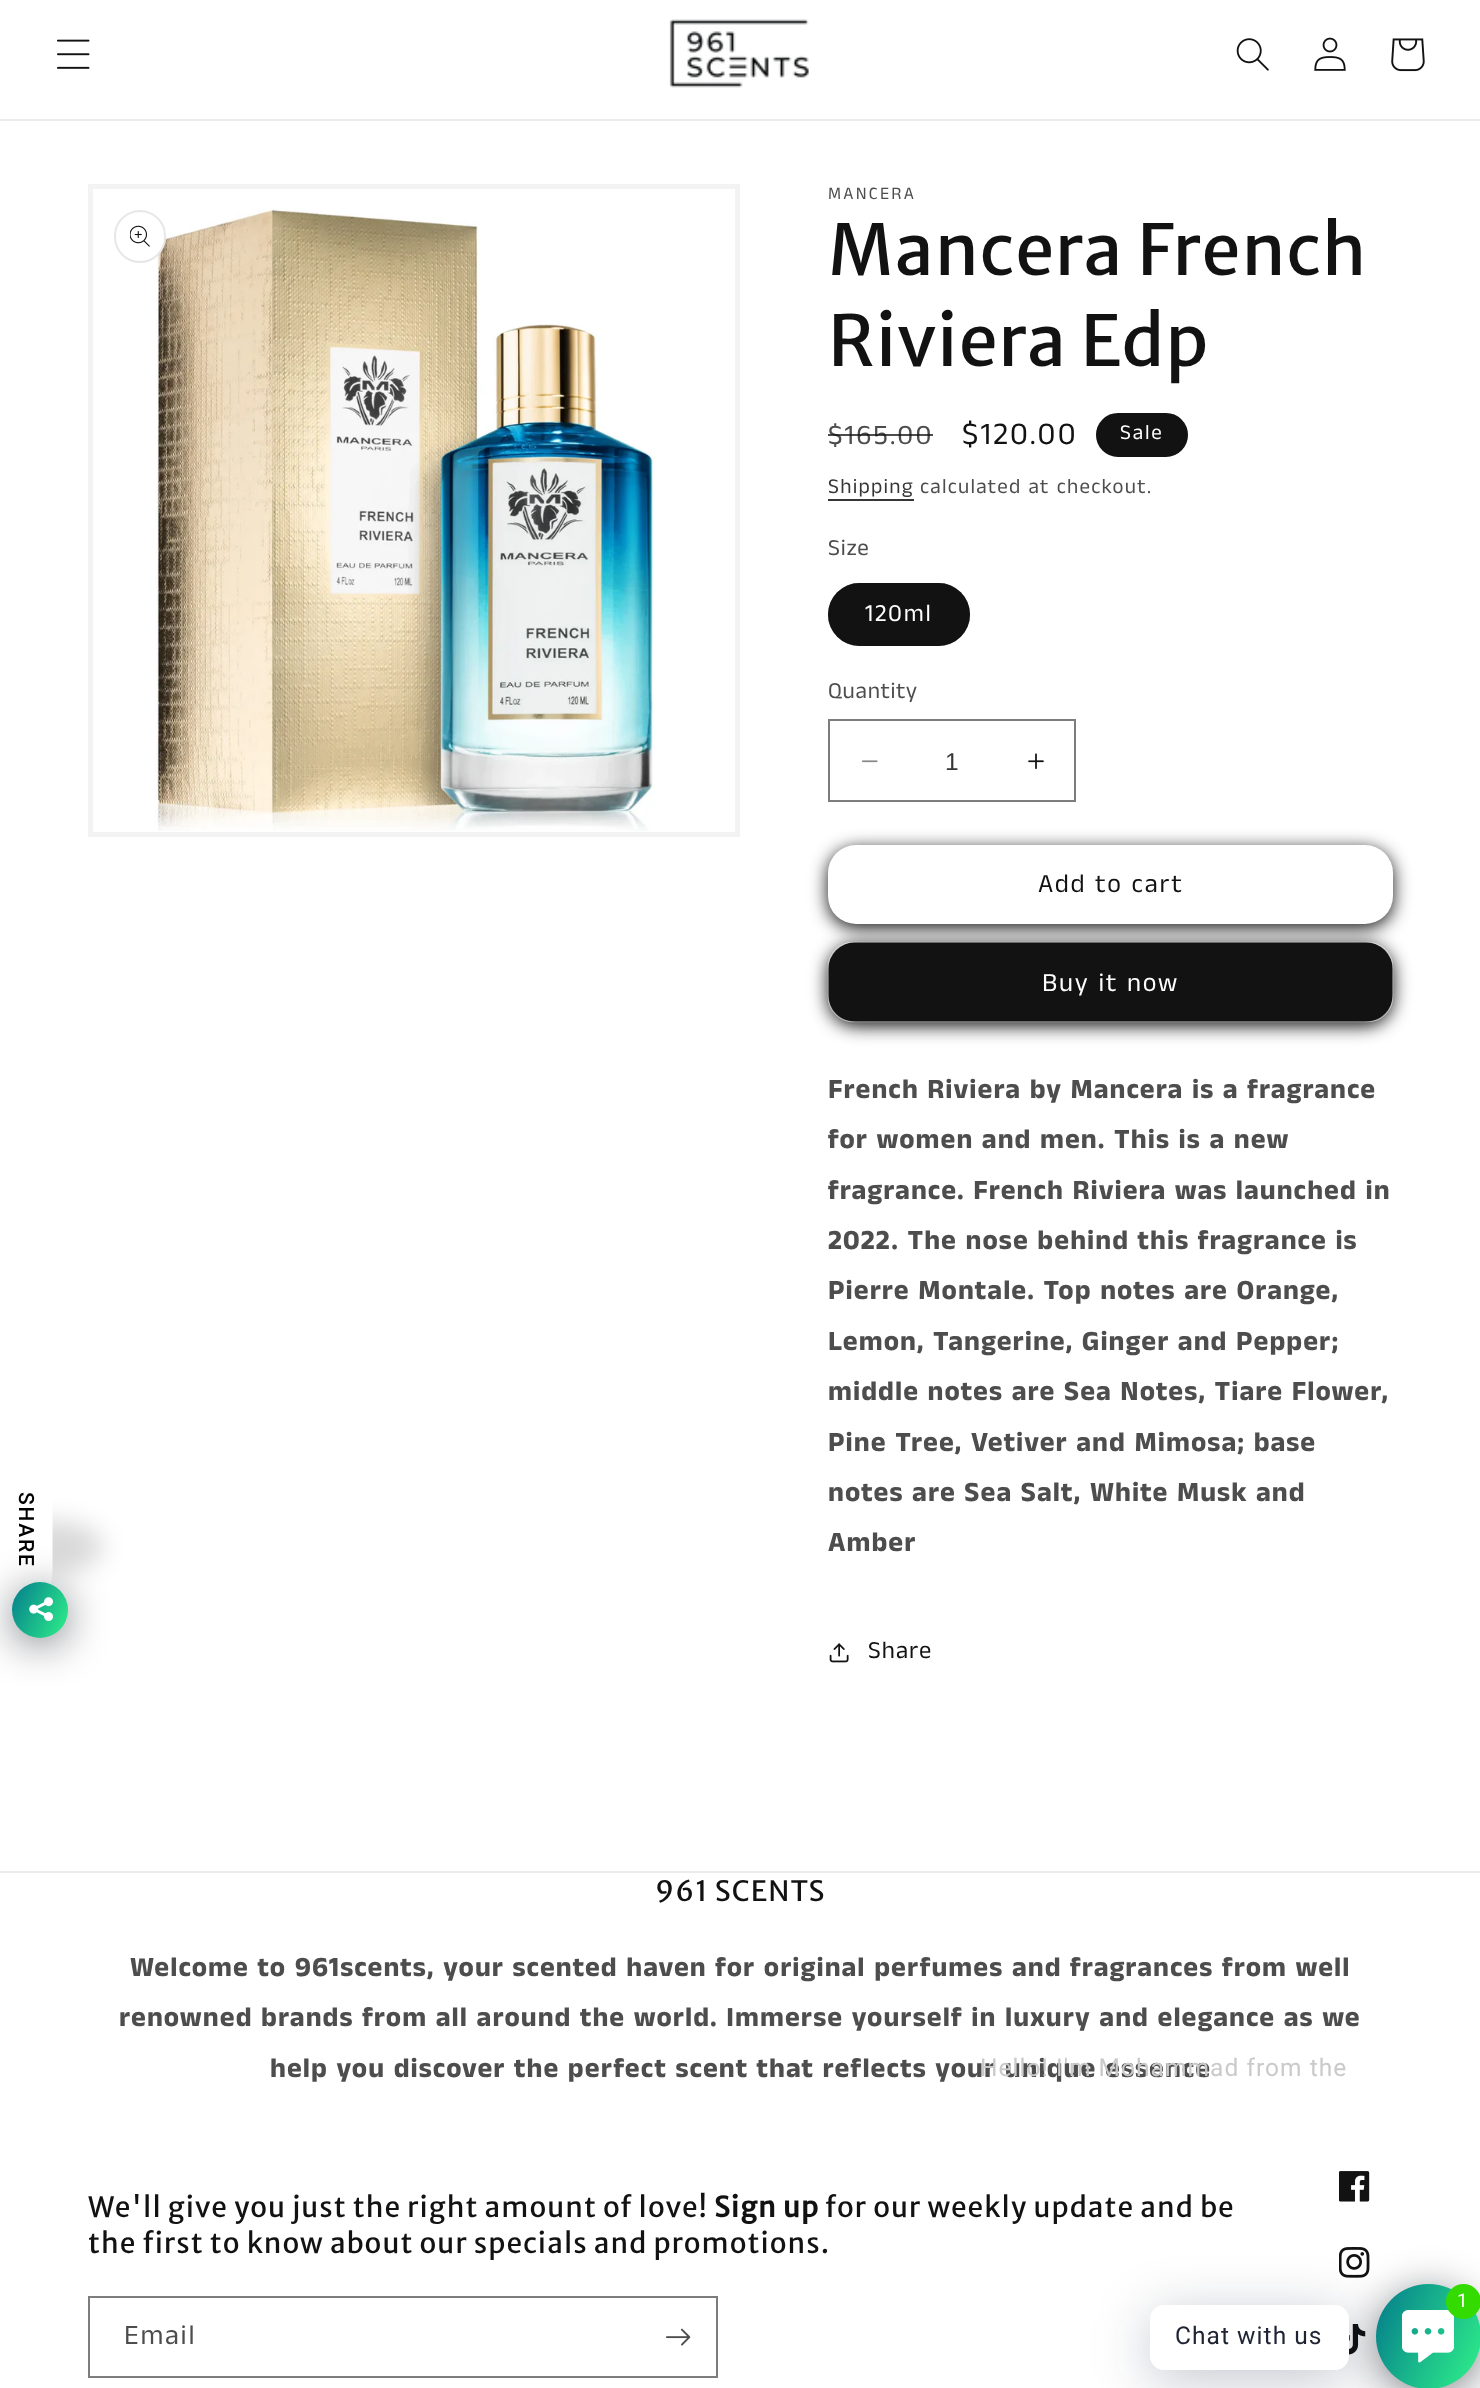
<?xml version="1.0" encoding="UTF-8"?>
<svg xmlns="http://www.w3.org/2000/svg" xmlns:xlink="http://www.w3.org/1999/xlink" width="1480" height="2388">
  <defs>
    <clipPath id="clip1"><path d="M 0 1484 h 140 v 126 h -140 z m 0 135.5 v -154 h 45.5 c 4 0 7 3 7 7 v 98 c 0 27 -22 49 -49 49 z" clip-rule="evenodd" /></clipPath>
    <linearGradient id="g1" gradientUnits="userSpaceOnUse" x1="6.5" y1="1594" x2="74" y2="1626"><stop offset="0" stop-color="#047c8d" /><stop offset="1" stop-color="#2ff289" /></linearGradient>
    <linearGradient id="g2" gradientUnits="userSpaceOnUse" x1="1365" y1="2307" x2="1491" y2="2366"><stop offset="0" stop-color="#047c8d" /><stop offset="1" stop-color="#2ff289" /></linearGradient>
  </defs>
  <rect width="100%" height="100%" fill="#ffffff" />
  <rect y="119" width="1480" height="2" fill="#ececec" />
  <image x="57" y="39" width="33" height="30" xlink:href="image1.png" />
  <image x="669" y="19" width="140" height="69" xlink:href="image2.png" />
  <image x="1236" y="38" width="33" height="33" xlink:href="image3.png" />
  <image x="1314" y="37" width="32" height="34" xlink:href="image4.png" />
  <image x="1391" y="38" width="34" height="34" xlink:href="image5.png" />
  <rect x="90.5" y="186.5" width="647" height="648" fill="none" stroke="#f3f3f3" stroke-width="5" />
  <image x="155" y="209" width="500" height="622" xlink:href="image7.png" />
  <rect x="114" y="210" width="52" height="53" rx="26" fill="#ffffff" />
  <rect x="115" y="211" width="50" height="51" rx="25" fill="none" stroke="#121212" stroke-opacity="0.1" stroke-width="2" />
  <image x="130" y="225" width="20" height="22" xlink:href="image6.png" />
  <rect x="1097" y="414" width="90" height="42" rx="21" fill="#121212" stroke="#121212" stroke-width="2" />
  <rect x="828" y="499" width="86" height="2" fill="#363636" />
  <rect x="828" y="583" width="142" height="63" rx="31.5" fill="#121212" />
  <rect x="829" y="584" width="140" height="61" rx="30.5" fill="none" stroke="#121212" stroke-opacity="0.55" stroke-width="2" />
  <image x="862" y="760" width="16" height="3" xlink:href="image8.png" />
  <image x="1028" y="753" width="16" height="17" xlink:href="image9.png" />
  <rect x="829" y="720" width="246" height="81" fill="none" stroke="#7d7d7d" stroke-width="2" />
  <rect x="828" y="849" width="565" height="79" rx="28" fill="#121212" filter="blur(9px)" />
  <rect x="828" y="945" width="565" height="81" rx="28" fill="#121212" filter="blur(9px)" />
  <rect x="828" y="845" width="565" height="79" rx="28" fill="#ffffff" />
  <rect x="828" y="942" width="565" height="80" rx="28" fill="#121212" />
  <rect x="828.25" y="942.25" width="564.5" height="79.5" rx="24.75" fill="none" stroke="#ffffff" stroke-width="0.5" />
  <image x="829" y="1643" width="20" height="20" xlink:href="image10.png" />
  <g clip-path="url(#clip1)">
    <rect x="-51" y="1521" width="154" height="52" rx="49" fill="#000000" fill-opacity="0.15" filter="blur(12px)" />
  </g>
  <rect x="12" y="1589" width="56" height="56" rx="28" fill="#020610" fill-opacity="0.5" filter="blur(21px)" />
  <circle cx="40" cy="1610" r="28" fill="url(#g1)" />
  <image x="29" y="1597" width="24" height="24" xlink:href="image11.png" />
  <image x="1339" y="2247" width="31" height="31" xlink:href="image15.png" />
  <image x="1349" y="2324" width="17" height="31" xlink:href="image16.png" />
  <rect x="1376" y="2291" width="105" height="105" rx="52.5" fill="#020610" fill-opacity="0.5" filter="blur(21px)" />
  <circle cx="1428.5" cy="2336.5" r="52.5" fill="url(#g2)" />
  <rect x="1150" y="2315" width="199" height="65" rx="14" fill="#00122e" fill-opacity="0.24" filter="blur(28px)" />
  <image x="1402" y="2310" width="52" height="53" xlink:href="image12.png" />
  <circle cx="1463.5" cy="2301.5" r="17.5" fill="#33db00" />
  <rect x="1150" y="2305" width="199" height="65" rx="14" fill="#ffffff" />
  <rect y="1871" width="1480" height="2" fill="#ececec" />
  <rect x="89" y="2297" width="628" height="80" fill="none" stroke="#7d7d7d" stroke-width="2" />
  <image x="666" y="2328" width="25" height="18" xlink:href="image13.png" />
  <image x="1339" y="2171" width="31" height="31" xlink:href="image14.png" />
  <text x="828" y="199" style="font-family: Anek Tamil; font-size: 17.5px; letter-spacing: 2.25px; fill: #4d4d4d">MANCERA</text>
  <text x="828" y="275" style="font-family: Merriweather Sans; font-size: 70px; letter-spacing: 1.05px; fill: #121212">Mancera French</text>
  <text x="828" y="366" style="font-family: Merriweather Sans; font-size: 70px; letter-spacing: 1.05px; fill: #121212">Riviera Edp</text>
  <text x="828" y="444" style="font-family: Anek Tamil; font-size: 28px; letter-spacing: 2.25px; fill: #4d4d4d">$165.00</text>
  <rect x="828" y="434" width="105" height="2" fill="#121212" fill-opacity="0.75" />
  <text x="962" y="444" style="font-family: Anek Tamil; font-size: 31.5px; letter-spacing: 2.25px; fill: #121212">$120.00</text>
  <text x="1120" y="439" style="font-family: Anek Tamil; font-size: 21px; letter-spacing: 1.75px; fill: #ffffff">Sale</text>
  <text x="828" y="493" style="font-family: Anek Tamil; font-size: 21px; letter-spacing: 1.25px; fill: #363636">Shipping</text>
  <text x="920" y="493" style="font-family: Anek Tamil; font-size: 21px; letter-spacing: 1.25px; fill: #4d4d4d">calculated at checkout.</text>
  <text x="828" y="555" style="font-family: Anek Tamil; font-size: 23px; letter-spacing: 0.75px; fill: #4d4d4d">Size</text>
  <text x="865" y="621" style="font-family: Anek Tamil; font-size: 24.5px; letter-spacing: 1.75px; fill: #ffffff">120ml</text>
  <text x="828" y="698" style="font-family: Anek Tamil; font-size: 23px; letter-spacing: 0.75px; fill: #4d4d4d">Quantity</text>
  <text x="945" y="770" style="font-family: Liberation Sans; font-size: 24.5px; fill: #363636">1</text>
  <text x="1038" y="892" style="font-family: Anek Tamil; font-size: 26.25px; letter-spacing: 1.75px; fill: #121212">Add to cart</text>
  <text x="1042" y="991" style="font-family: Anek Tamil; font-size: 26.25px; letter-spacing: 1.75px; fill: #ffffff">Buy it now</text>
  <text x="828" y="1098" style="font-family: Anek Tamil; font-size: 28px; font-weight: bold; letter-spacing: 1.05px; fill: #4d4d4d">French Riviera by Mancera is a fragrance</text>
  <text x="828" y="1148" style="font-family: Anek Tamil; font-size: 28px; font-weight: bold; letter-spacing: 1.05px; fill: #4d4d4d">for women and men. This is a new</text>
  <text x="828" y="1199" style="font-family: Anek Tamil; font-size: 28px; font-weight: bold; letter-spacing: 1.05px; fill: #4d4d4d">fragrance. French Riviera was launched in</text>
  <text x="828" y="1249" style="font-family: Anek Tamil; font-size: 28px; font-weight: bold; letter-spacing: 1.05px; fill: #4d4d4d">2022. The nose behind this fragrance is</text>
  <text x="828" y="1299" style="font-family: Anek Tamil; font-size: 28px; font-weight: bold; letter-spacing: 1.05px; fill: #4d4d4d">Pierre Montale. Top notes are Orange,</text>
  <text x="828" y="1350" style="font-family: Anek Tamil; font-size: 28px; font-weight: bold; letter-spacing: 1.05px; fill: #4d4d4d">Lemon, Tangerine, Ginger and Pepper;</text>
  <text x="828" y="1400" style="font-family: Anek Tamil; font-size: 28px; font-weight: bold; letter-spacing: 1.05px; fill: #4d4d4d">middle notes are Sea Notes, Tiare Flower,</text>
  <text x="828" y="1451" style="font-family: Anek Tamil; font-size: 28px; font-weight: bold; letter-spacing: 1.05px; fill: #4d4d4d">Pine Tree, Vetiver and Mimosa; base</text>
  <text x="828" y="1501" style="font-family: Anek Tamil; font-size: 28px; font-weight: bold; letter-spacing: 1.05px; fill: #4d4d4d">notes are Sea Salt, White Musk and</text>
  <text x="828" y="1551" style="font-family: Anek Tamil; font-size: 28px; font-weight: bold; letter-spacing: 1.05px; fill: #4d4d4d">Amber</text>
  <text x="868" y="1658" style="font-family: Anek Tamil; font-size: 24.5px; letter-spacing: 1.05px; fill: #121212">Share</text>
  <text x="19" y="1492" transform="rotate(90 19 1492)" style="font-family: Roboto; font-size: 21px; font-weight: 500; letter-spacing: 1.75px; fill: #000000">SHARE</text>
  <text x="1457" y="2307" style="font-family: Roboto; font-size: 19px; letter-spacing: 1.05px; fill: #ffffff">1</text>
  <text x="1175" y="2344" style="font-family: Roboto; font-size: 24.5px; letter-spacing: 1.05px; fill: #1e2433">Chat with us</text>
  <text x="655" y="1901" style="font-family: Merriweather Sans; font-size: 28px; letter-spacing: 1.05px; fill: #121212">961 SCENTS</text>
  <text x="130" y="1976" style="font-family: Anek Tamil; font-size: 28px; font-weight: bold; letter-spacing: 1.05px; fill: #4d4d4d">Welcome to 961scents, your scented haven for original perfumes and fragrances from well</text>
  <text x="119" y="2026" style="font-family: Anek Tamil; font-size: 28px; font-weight: bold; letter-spacing: 1.05px; fill: #4d4d4d">renowned brands from all around the world. Immerse yourself in luxury and elegance as we</text>
  <text x="270" y="2077" style="font-family: Anek Tamil; font-size: 28px; font-weight: bold; letter-spacing: 1.05px; fill: #4d4d4d">help you discover the perfect scent that reflects your unique essence</text>
  <text x="980" y="2076" style="font-family: Roboto; font-size: 24.5px; letter-spacing: 1.05px; fill: #cacaca">Hello! I'm Mohammad from the</text>
  <text x="88" y="2217" style="font-family: Merriweather Sans; font-size: 28px; letter-spacing: 1.05px; fill: #121212">We'll give you just the right amount of love!</text>
  <text x="714" y="2217" style="font-family: Merriweather Sans; font-size: 28px; font-weight: bold; letter-spacing: 1.05px; fill: #121212">Sign up</text>
  <text x="825" y="2217" style="font-family: Merriweather Sans; font-size: 28px; letter-spacing: 1.05px; fill: #121212">for our weekly update and be</text>
  <text x="88" y="2253" style="font-family: Merriweather Sans; font-size: 28px; letter-spacing: 1.05px; fill: #121212">the first to know about our specials and promotions.</text>
  <text x="124" y="2344" style="font-family: Anek Tamil; font-size: 28px; letter-spacing: 1.75px; fill: #4d4d4d">Email</text>
</svg>
